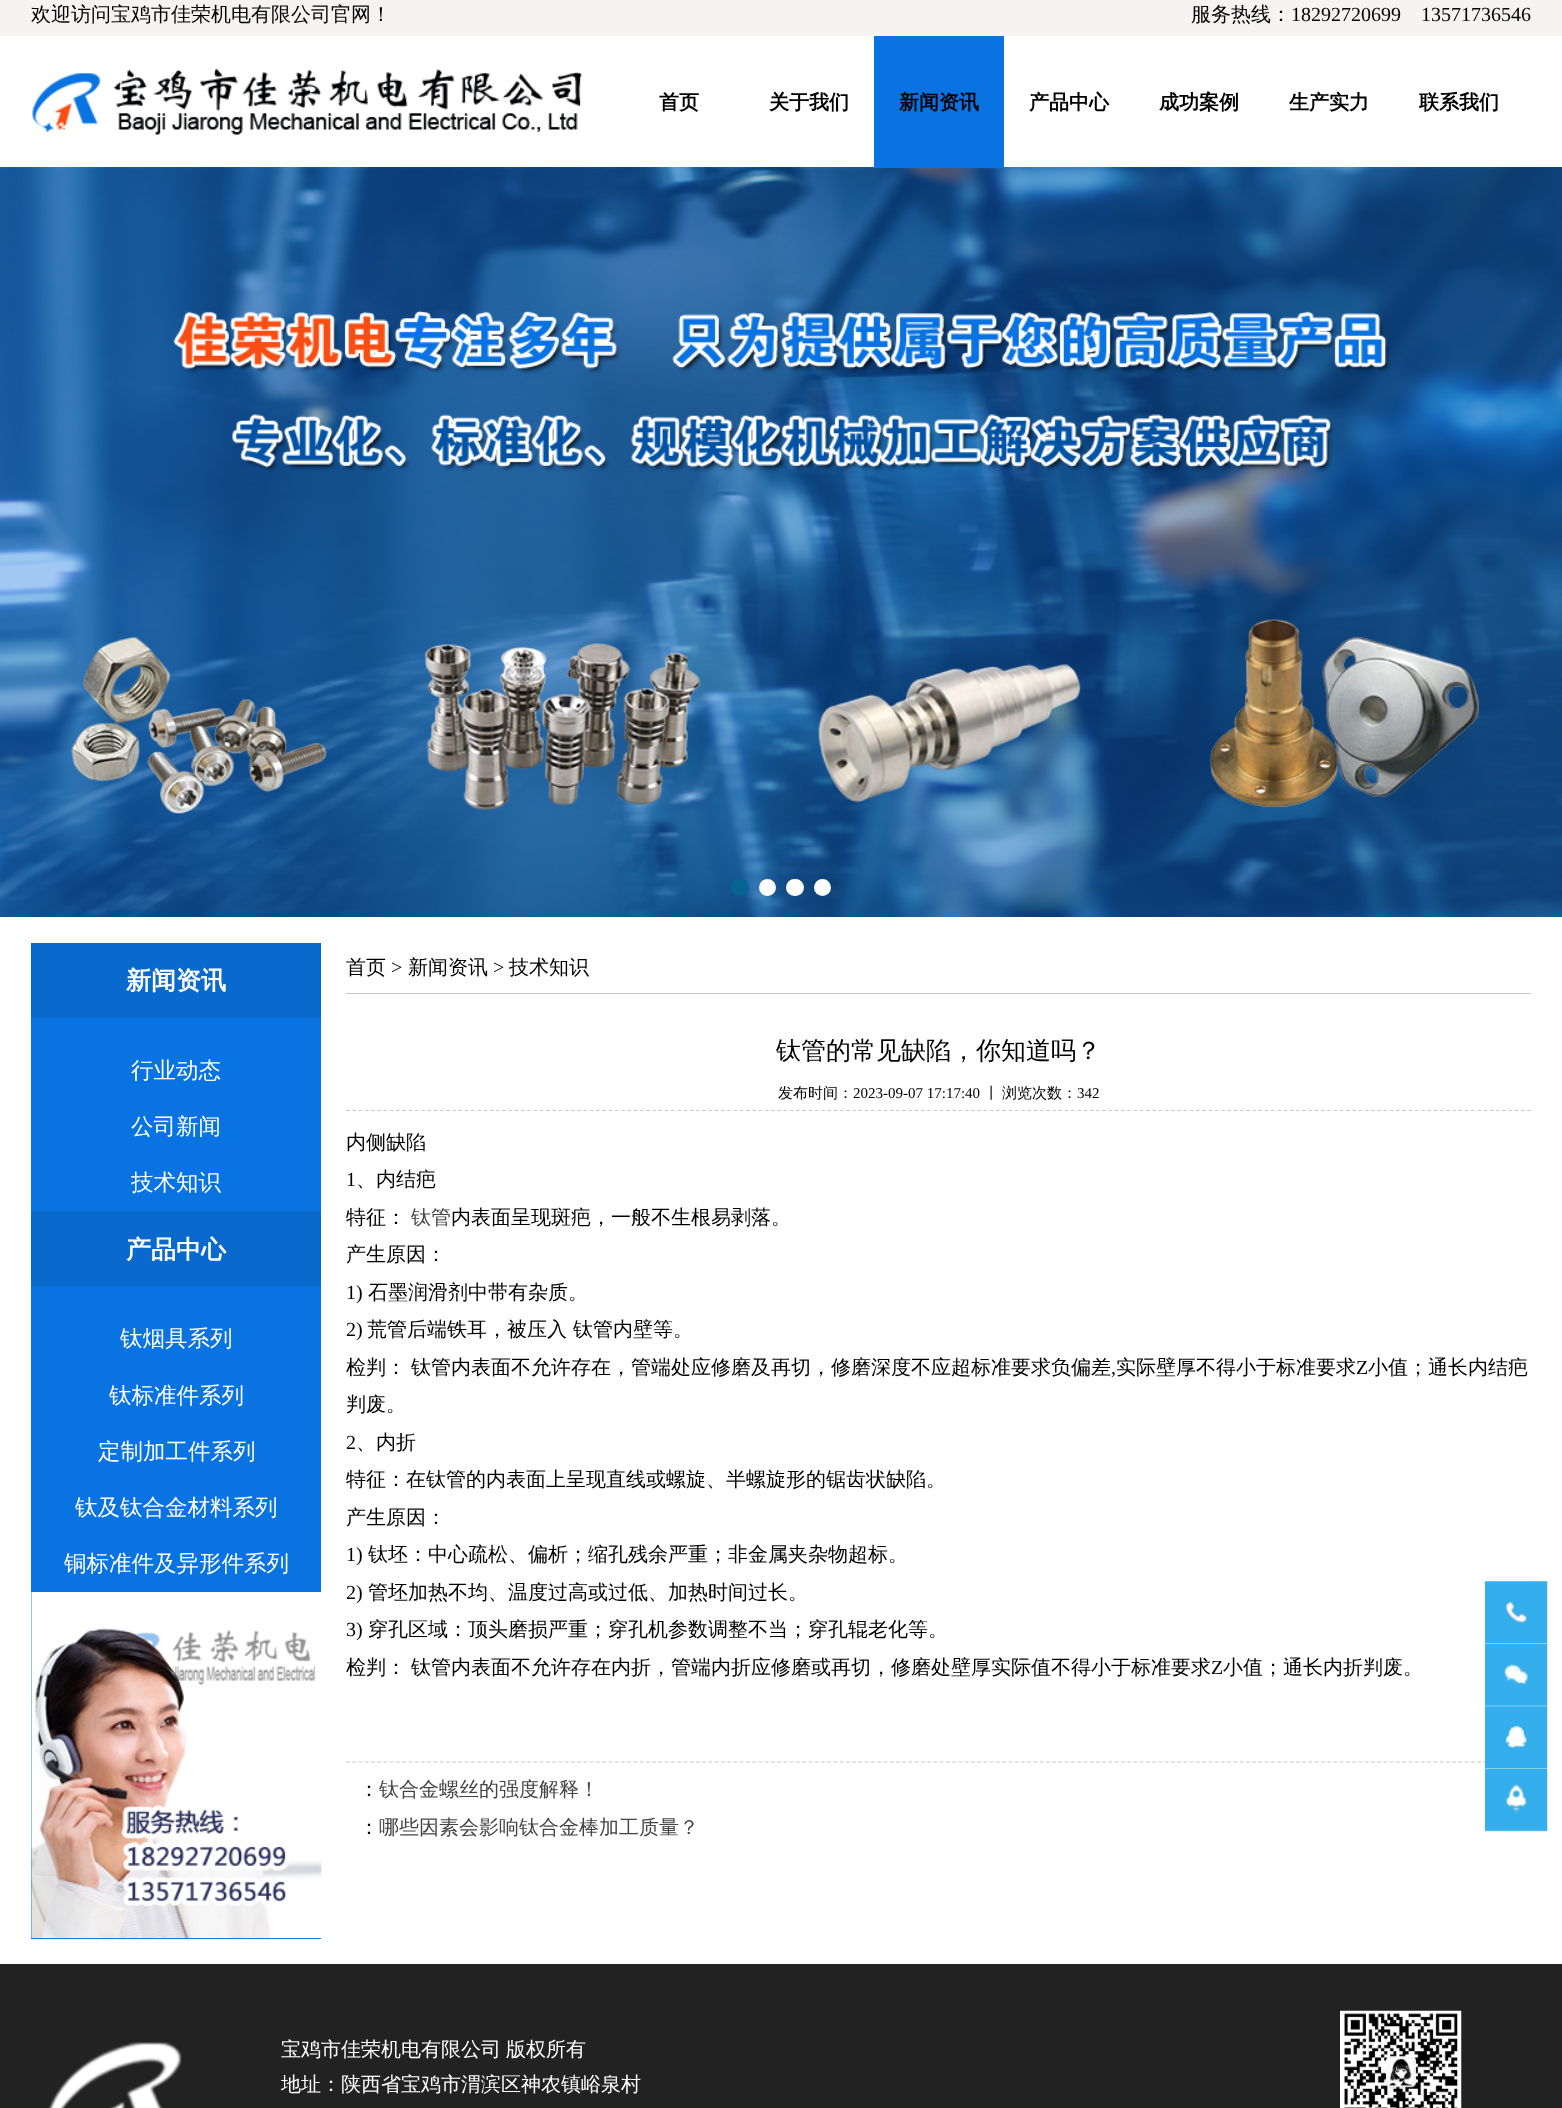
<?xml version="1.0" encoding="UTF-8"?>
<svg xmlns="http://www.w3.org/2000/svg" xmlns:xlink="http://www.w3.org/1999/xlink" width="1562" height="2108">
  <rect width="100%" height="100%" fill="#ffffff" />
  <rect width="1562" height="36" fill="#f6f3f3" />
  <image x="32" y="68" width="550" height="67" xlink:href="image1.png" />
  <image x="0" y="167" width="1562" height="750" xlink:href="image2.png" />
  <rect x="874" y="36" width="130" height="132" fill="#0973e1" />
  <rect x="731" y="879" width="18" height="17" rx="8.5" fill="#076492" />
  <circle cx="767.5" cy="887.5" r="8.5" fill="#ffffff" />
  <rect x="786" y="879" width="18" height="17" rx="8.5" fill="#ffffff" />
  <circle cx="822.5" cy="887.5" r="8.5" fill="#ffffff" />
  <rect x="31" y="1018" width="290" height="921" fill="#0973e2" />
  <rect x="31" y="943" width="290" height="75" fill="#0a69cc" />
  <rect x="31" y="1211" width="290" height="75" fill="#0a69cc" />
  <image x="31" y="1592" width="291" height="347" xlink:href="image3.png" />
  <rect x="346" y="993" width="1185" height="1" fill="#c8c8c8" />
  <path d="M 346 1110.5 h 1185" fill="none" stroke="#c8c8c8" stroke-width="1.2" stroke-dasharray="3.75 2.5" />
  <path d="M 346 1762 h 1185" fill="none" stroke="#c8c8c8" stroke-width="1.2" stroke-dasharray="3.75 2.5" />
  <image x="1485" y="1581" width="63" height="64" xlink:href="image4.png" />
  <image x="1485" y="1643" width="63" height="64" xlink:href="image5.png" />
  <image x="1485" y="1706" width="63" height="64" xlink:href="image6.png" />
  <image x="1485" y="1768" width="63" height="64" xlink:href="image7.png" />
  <rect y="1964" width="1562" height="144" fill="#222222" />
  <image x="48" y="2042" width="134" height="66" xlink:href="image8.png" />
  <image x="1340" y="2010" width="122" height="98" xlink:href="image9.png" />
  <text x="31" y="21" style="font-family: WenQuanYi Zen Hei; font-size: 20px; font-weight: 500; fill: #000000">欢迎访问宝鸡市佳荣机电有限公司官网！</text>
  <text x="1191" y="21" style="font-family: WenQuanYi Zen Hei; font-size: 20px; font-weight: 500; fill: #000000">服务热线：</text>
  <text x="1291" y="21" style="font-family: Liberation Serif; font-size: 20px; fill: #000000">18292720699</text>
  <text x="1421" y="21" style="font-family: Liberation Serif; font-size: 20px; fill: #000000">13571736546</text>
  <text x="659" y="109" style="font-family: WenQuanYi Zen Hei; font-size: 20px; font-weight: bold; fill: #000000">首页</text>
  <text x="769" y="109" style="font-family: WenQuanYi Zen Hei; font-size: 20px; font-weight: bold; fill: #000000">关于我们</text>
  <text x="899" y="109" style="font-family: WenQuanYi Zen Hei; font-size: 20px; font-weight: bold; fill: #000000">新闻资讯</text>
  <text x="1029" y="109" style="font-family: WenQuanYi Zen Hei; font-size: 20px; font-weight: bold; fill: #000000">产品中心</text>
  <text x="1159" y="109" style="font-family: WenQuanYi Zen Hei; font-size: 20px; font-weight: bold; fill: #000000">成功案例</text>
  <text x="1289" y="109" style="font-family: WenQuanYi Zen Hei; font-size: 20px; font-weight: bold; fill: #000000">生产实力</text>
  <text x="1419" y="109" style="font-family: WenQuanYi Zen Hei; font-size: 20px; font-weight: bold; fill: #000000">联系我们</text>
  <text x="126" y="989" style="font-family: WenQuanYi Zen Hei; font-size: 25px; font-weight: bold; fill: #ffffff">新闻资讯</text>
  <text x="131" y="1078" style="font-family: WenQuanYi Zen Hei; font-size: 22.5px; font-weight: 500; fill: #ffffff">行业动态</text>
  <text x="131" y="1134" style="font-family: WenQuanYi Zen Hei; font-size: 22.5px; font-weight: 500; fill: #ffffff">公司新闻</text>
  <text x="131" y="1190" style="font-family: WenQuanYi Zen Hei; font-size: 22.5px; font-weight: 500; fill: #ffffff">技术知识</text>
  <text x="126" y="1258" style="font-family: WenQuanYi Zen Hei; font-size: 25px; font-weight: bold; fill: #ffffff">产品中心</text>
  <text x="120" y="1346" style="font-family: WenQuanYi Zen Hei; font-size: 22.5px; font-weight: 500; fill: #ffffff">钛烟具系列</text>
  <text x="109" y="1403" style="font-family: WenQuanYi Zen Hei; font-size: 22.5px; font-weight: 500; fill: #ffffff">钛标准件系列</text>
  <text x="98" y="1459" style="font-family: WenQuanYi Zen Hei; font-size: 22.5px; font-weight: 500; fill: #ffffff">定制加工件系列</text>
  <text x="75" y="1515" style="font-family: WenQuanYi Zen Hei; font-size: 22.5px; font-weight: 500; fill: #ffffff">钛及钛合金材料系列</text>
  <text x="64" y="1571" style="font-family: WenQuanYi Zen Hei; font-size: 22.5px; font-weight: 500; fill: #ffffff">铜标准件及异形件系列</text>
  <text x="346" y="974" style="font-family: WenQuanYi Zen Hei; font-size: 20px; font-weight: 500; fill: #000000">首页</text>
  <text x="391" y="974" style="font-family: Liberation Serif; font-size: 20px; fill: #000000">&gt;</text>
  <text x="408" y="974" style="font-family: WenQuanYi Zen Hei; font-size: 20px; font-weight: 500; fill: #000000">新闻资讯</text>
  <text x="493" y="974" style="font-family: Liberation Serif; font-size: 20px; fill: #000000">&gt;</text>
  <text x="509" y="974" style="font-family: WenQuanYi Zen Hei; font-size: 20px; font-weight: 500; fill: #000000">技术知识</text>
  <text x="776" y="1059" style="font-family: WenQuanYi Zen Hei; font-size: 25px; font-weight: 500; fill: #000000">钛管的常见缺陷，你知道吗？</text>
  <text x="778" y="1098" style="font-family: WenQuanYi Zen Hei; font-size: 15px; font-weight: 500; fill: #000000">发布时间：</text>
  <text x="853" y="1098" style="font-family: Liberation Serif; font-size: 15px; fill: #000000">2023-09-07 17:17:40</text>
  <text x="984" y="1098" style="font-family: WenQuanYi Zen Hei; font-size: 15px; font-weight: 500; fill: #000000">丨</text>
  <text x="1002" y="1098" style="font-family: WenQuanYi Zen Hei; font-size: 15px; font-weight: 500; fill: #000000">浏览次数：</text>
  <text x="1077" y="1098" style="font-family: Liberation Serif; font-size: 15px; fill: #000000">342</text>
  <text x="346" y="1149" style="font-family: WenQuanYi Zen Hei; font-size: 20px; font-weight: 500; fill: #000000">内侧缺陷</text>
  <text x="346" y="1186" style="font-family: Liberation Serif; font-size: 20px; fill: #000000">1</text>
  <text x="356" y="1186" style="font-family: WenQuanYi Zen Hei; font-size: 20px; font-weight: 500; fill: #000000">、内结疤</text>
  <text x="346" y="1224" style="font-family: WenQuanYi Zen Hei; font-size: 20px; font-weight: 500; fill: #000000">特征：</text>
  <text x="411" y="1224" style="font-family: WenQuanYi Zen Hei; font-size: 20px; font-weight: 500; fill: #444444">钛管</text>
  <text x="451" y="1224" style="font-family: WenQuanYi Zen Hei; font-size: 20px; font-weight: 500; fill: #000000">内表面呈现斑疤，一般不生根易剥落。</text>
  <text x="346" y="1261" style="font-family: WenQuanYi Zen Hei; font-size: 20px; font-weight: 500; fill: #000000">产生原因：</text>
  <text x="346" y="1299" style="font-family: Liberation Serif; font-size: 20px; fill: #000000">1)</text>
  <text x="368" y="1299" style="font-family: WenQuanYi Zen Hei; font-size: 20px; font-weight: 500; fill: #000000">石墨润滑剂中带有杂质。</text>
  <text x="346" y="1336" style="font-family: Liberation Serif; font-size: 20px; fill: #000000">2)</text>
  <text x="367" y="1336" style="font-family: WenQuanYi Zen Hei; font-size: 20px; font-weight: 500; fill: #000000">荒管后端铁耳，被压入 钛管内壁等。</text>
  <text x="346" y="1374" word-spacing="-1" style="font-family: WenQuanYi Zen Hei; font-size: 20px; font-weight: 500; fill: #000000">检判： 钛管内表面不允许存在，管端处应修磨及再切，修磨深度不应超标准要求负偏差</text>
  <text x="1111" y="1374" style="font-family: Liberation Serif; font-size: 20px; fill: #000000">,</text>
  <text x="1116" y="1374" style="font-family: WenQuanYi Zen Hei; font-size: 20px; font-weight: 500; fill: #000000">实际壁厚不得小于标准要求</text>
  <text x="1356" y="1374" style="font-family: Liberation Serif; font-size: 20px; fill: #000000">Z</text>
  <text x="1368" y="1374" style="font-family: WenQuanYi Zen Hei; font-size: 20px; font-weight: 500; fill: #000000">小值；通长内结疤</text>
  <text x="346" y="1411" style="font-family: WenQuanYi Zen Hei; font-size: 20px; font-weight: 500; fill: #000000">判废。</text>
  <text x="346" y="1449" style="font-family: Liberation Serif; font-size: 20px; fill: #000000">2</text>
  <text x="356" y="1449" style="font-family: WenQuanYi Zen Hei; font-size: 20px; font-weight: 500; fill: #000000">、内折</text>
  <text x="346" y="1486" style="font-family: WenQuanYi Zen Hei; font-size: 20px; font-weight: 500; fill: #000000">特征：在钛管的内表面上呈现直线或螺旋、半螺旋形的锯齿状缺陷。</text>
  <text x="346" y="1524" style="font-family: WenQuanYi Zen Hei; font-size: 20px; font-weight: 500; fill: #000000">产生原因：</text>
  <text x="346" y="1561" style="font-family: Liberation Serif; font-size: 20px; fill: #000000">1)</text>
  <text x="368" y="1561" style="font-family: WenQuanYi Zen Hei; font-size: 20px; font-weight: 500; fill: #000000">钛坯：中心疏松、偏析；缩孔残余严重；非金属夹杂物超标。</text>
  <text x="346" y="1599" style="font-family: Liberation Serif; font-size: 20px; fill: #000000">2)</text>
  <text x="368" y="1599" style="font-family: WenQuanYi Zen Hei; font-size: 20px; font-weight: 500; fill: #000000">管坯加热不均、温度过高或过低、加热时间过长。</text>
  <text x="346" y="1636" style="font-family: Liberation Serif; font-size: 20px; fill: #000000">3)</text>
  <text x="368" y="1636" style="font-family: WenQuanYi Zen Hei; font-size: 20px; font-weight: 500; fill: #000000">穿孔区域：顶头磨损严重；穿孔机参数调整不当；穿孔辊老化等。</text>
  <text x="346" y="1674" word-spacing="-1" style="font-family: WenQuanYi Zen Hei; font-size: 20px; font-weight: 500; fill: #000000">检判： 钛管内表面不允许存在内折，管端内折应修磨或再切，修磨处壁厚实际值不得小于标准要求</text>
  <text x="1211" y="1674" style="font-family: Liberation Serif; font-size: 20px; fill: #000000">Z</text>
  <text x="1223" y="1674" style="font-family: WenQuanYi Zen Hei; font-size: 20px; font-weight: 500; fill: #000000">小值；通长内折判废。</text>
  <text x="359" y="1796" style="font-family: WenQuanYi Zen Hei; font-size: 20px; font-weight: 500; fill: #000000">：</text>
  <text x="379" y="1796" style="font-family: WenQuanYi Zen Hei; font-size: 20px; font-weight: 500; fill: #444444">钛合金螺丝的强度解释！</text>
  <text x="359" y="1834" style="font-family: WenQuanYi Zen Hei; font-size: 20px; font-weight: 500; fill: #000000">：</text>
  <text x="379" y="1834" style="font-family: WenQuanYi Zen Hei; font-size: 20px; font-weight: 500; fill: #444444">哪些因素会影响钛合金棒加工质量？</text>
  <text x="281" y="2056" word-spacing="-1" style="font-family: WenQuanYi Zen Hei; font-size: 20px; font-weight: 500; fill: #ffffff">宝鸡市佳荣机电有限公司 版权所有</text>
  <text x="281" y="2091" style="font-family: WenQuanYi Zen Hei; font-size: 20px; font-weight: 500; fill: #ffffff">地址：陕西省宝鸡市渭滨区神农镇峪泉村</text>
</svg>
